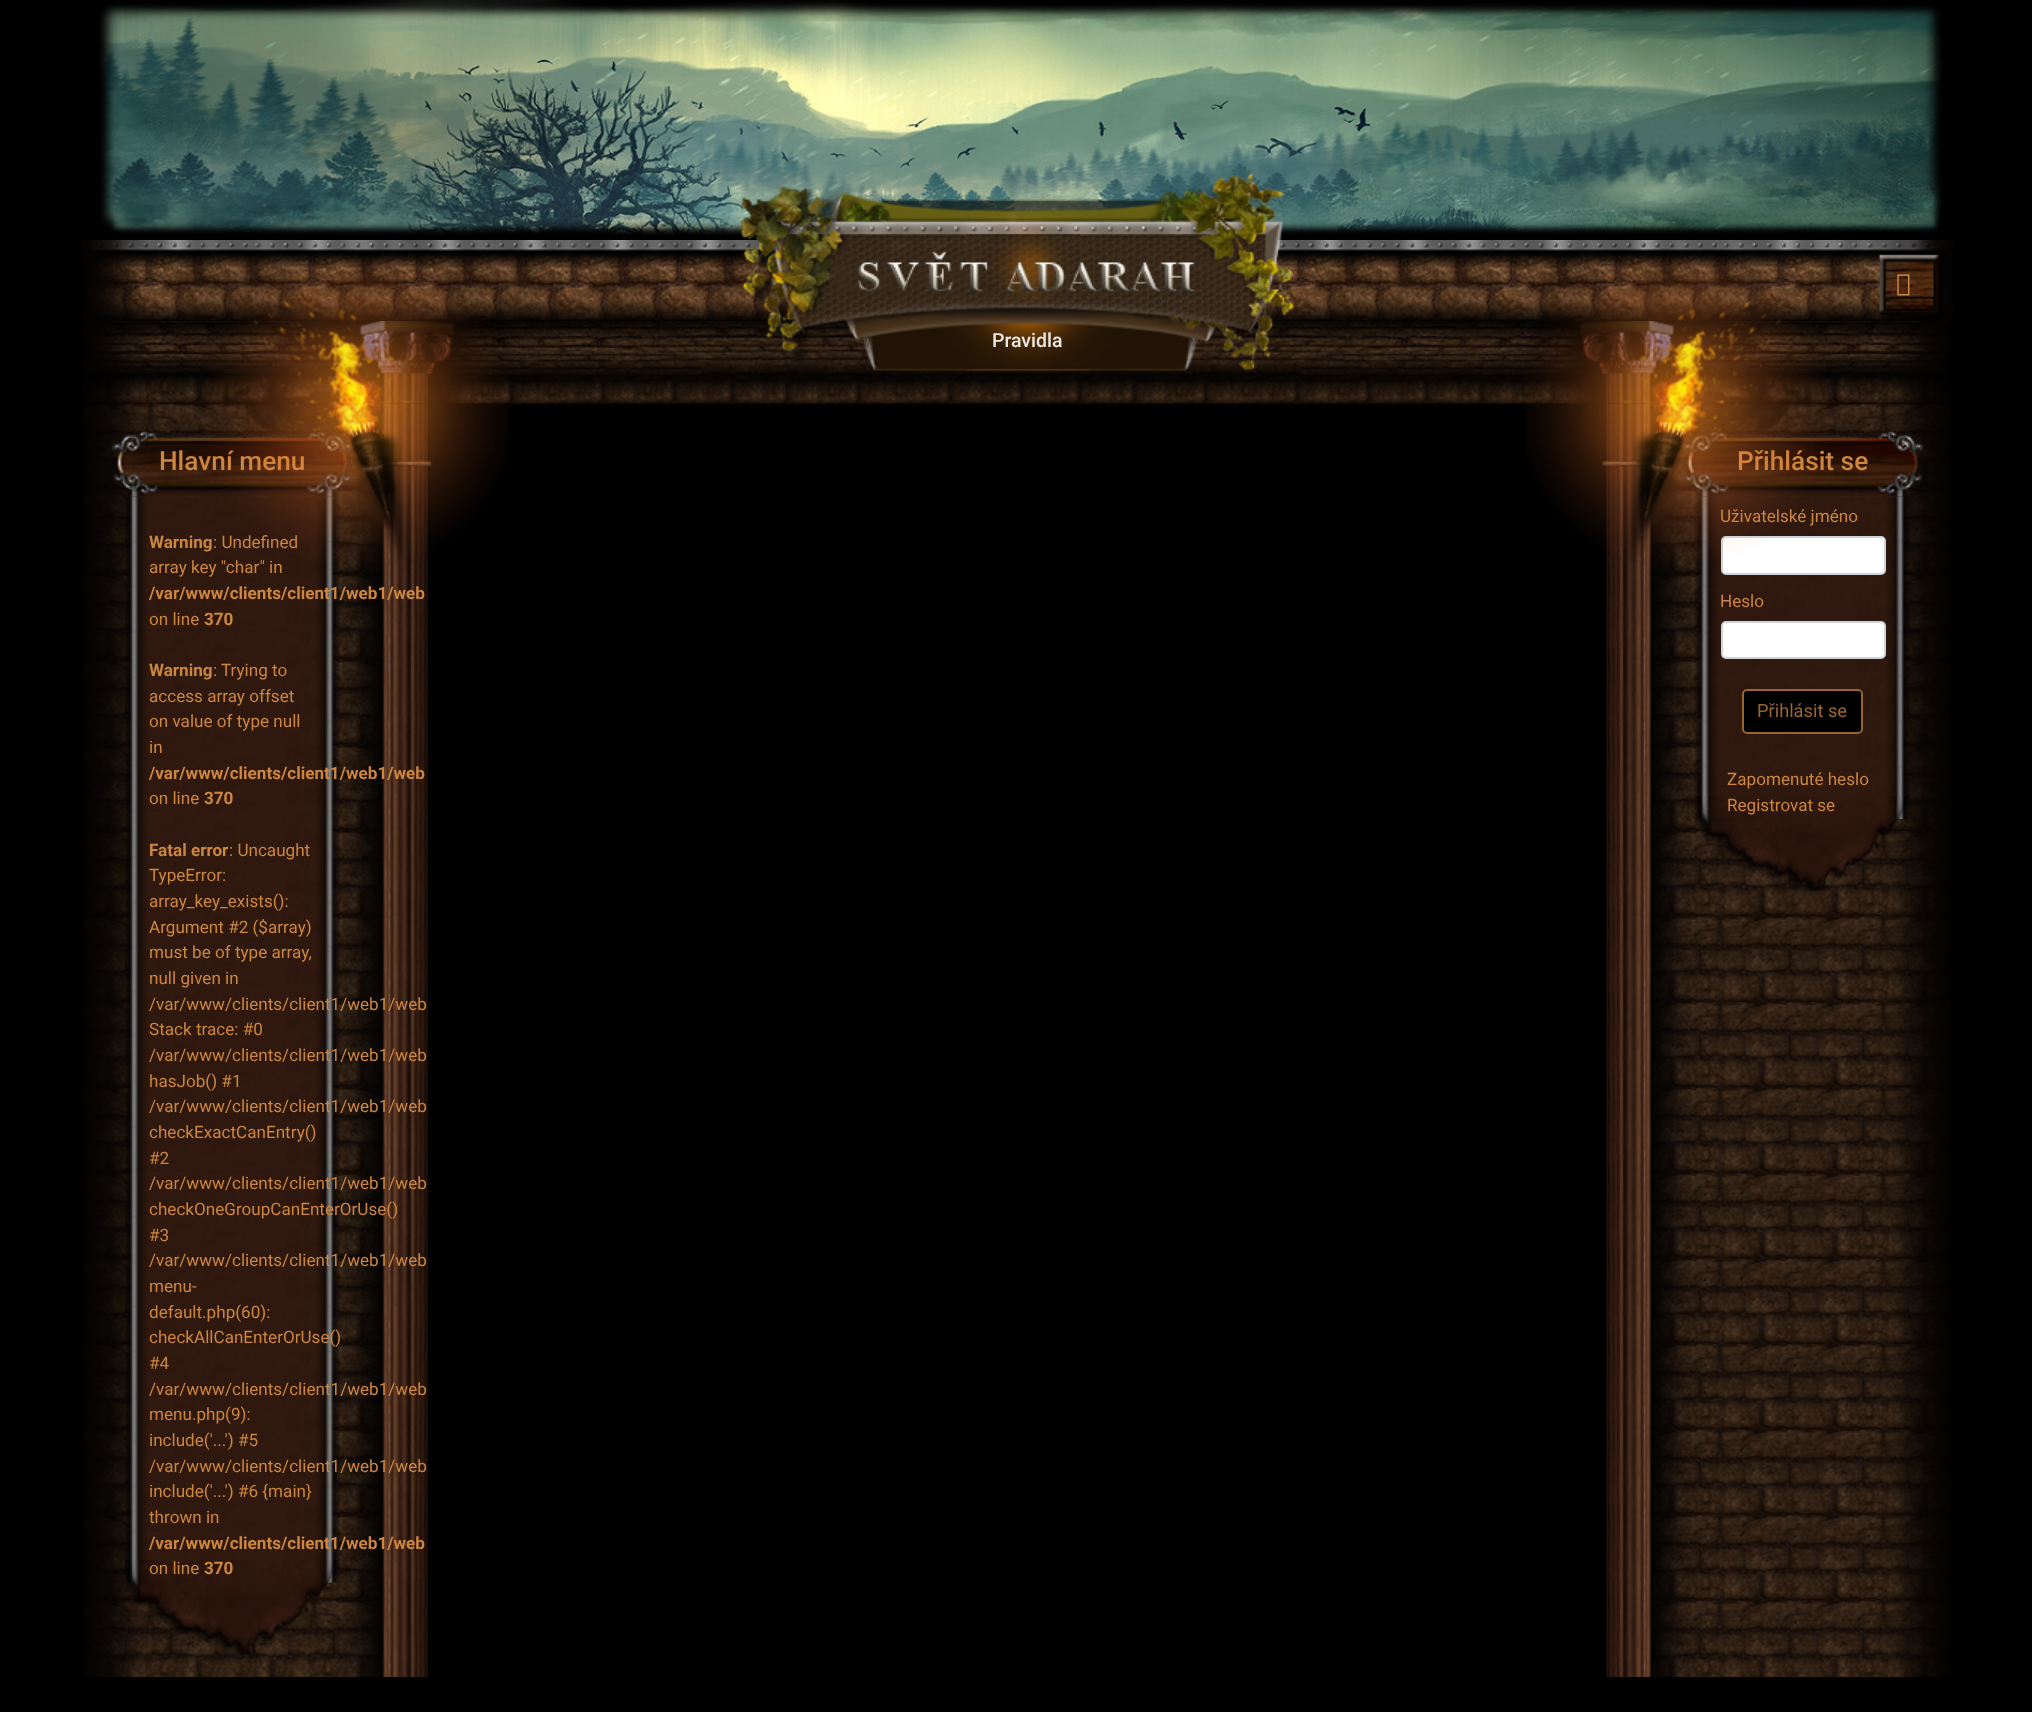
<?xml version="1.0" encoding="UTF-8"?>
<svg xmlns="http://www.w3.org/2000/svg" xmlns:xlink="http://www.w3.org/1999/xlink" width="2032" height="1712">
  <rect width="100%" height="100%" fill="#000000" />
  <image x="82" y="240" width="1872" height="81" xlink:href="image1.png" />
  <image x="1879" y="254" width="64" height="66" xlink:href="image2.png" />
  <image x="1897" y="274" width="13" height="22" xlink:href="image3.png" />
  <image x="82" y="321" width="1867" height="83" xlink:href="image4.png" />
  <image x="99" y="0" width="1843" height="235" xlink:href="image7.png" />
  <image x="740" y="172" width="555" height="199" xlink:href="image8.png" />
  <image x="84" y="403" width="344" height="1274" xlink:href="image9.png" />
  <image x="112" y="431" width="241" height="66" xlink:href="image10.png" />
  <image x="125" y="496" width="215" height="1087" xlink:href="image11.png" />
  <image x="125" y="1560" width="214" height="95" xlink:href="image12.png" />
  <image x="1606" y="403" width="344" height="1274" xlink:href="image13.png" />
  <image x="1683" y="430" width="240" height="67" xlink:href="image14.png" />
  <image x="1694" y="496" width="216" height="323" xlink:href="image15.png" />
  <rect x="1722" y="537" width="163" height="37" rx="4" fill="#ffffff" stroke="#ced4da" stroke-width="2" />
  <rect x="1722" y="622" width="163" height="36" rx="4" fill="#ffffff" stroke="#ced4da" stroke-width="2" />
  <rect x="1742" y="689" width="121" height="45" rx="5" fill="#000000" />
  <rect x="1743" y="690" width="119" height="43" rx="4" fill="none" stroke="#cd863f" stroke-opacity="0.75" stroke-width="2" />
  <image x="1695" y="796" width="213" height="95" xlink:href="image16.png" />
  <text x="992" y="347" style="font-family: Roboto; font-size: 19.5px; font-weight: 500; fill: #edeae6">Pravidla</text>
  <text x="159" y="470" style="font-family: Roboto; font-size: 26.25px; font-weight: 500; fill: #cd863f">Hlavní menu</text>
  <text x="149" y="548" style="font-family: Roboto; font-size: 17.1px; font-weight: bold; fill: #cd863f">Warning</text>
  <text x="213" y="548" style="font-family: Roboto; font-size: 17.1px; fill: #cd863f">: Undefined</text>
  <text x="149" y="573" style="font-family: Roboto; font-size: 17.1px; fill: #cd863f">array key "char" in</text>
  <image x="205" y="259" width="304" height="305" xlink:href="image5.png" />
  <text x="149" y="599" style="font-family: Roboto; font-size: 17.1px; font-weight: bold; fill: #cd863f">/var/www/clients/client1/web1/web</text>
  <text x="149" y="625" style="font-family: Roboto; font-size: 17.1px; fill: #cd863f">on line</text>
  <text x="204" y="625" style="font-family: Roboto; font-size: 17.1px; font-weight: bold; fill: #cd863f">370</text>
  <text x="149" y="676" style="font-family: Roboto; font-size: 17.1px; font-weight: bold; fill: #cd863f">Warning</text>
  <text x="213" y="676" style="font-family: Roboto; font-size: 17.1px; fill: #cd863f">:</text>
  <text x="221" y="676" style="font-family: Roboto; font-size: 17.1px; fill: #cd863f">Trying to</text>
  <text x="149" y="702" style="font-family: Roboto; font-size: 17.1px; fill: #cd863f">access array offset</text>
  <text x="149" y="727" style="font-family: Roboto; font-size: 17.1px; fill: #cd863f">on value of type null</text>
  <text x="149" y="753" style="font-family: Roboto; font-size: 17.1px; fill: #cd863f">in</text>
  <text x="149" y="779" style="font-family: Roboto; font-size: 17.1px; font-weight: bold; fill: #cd863f">/var/www/clients/client1/web1/web</text>
  <text x="149" y="804" style="font-family: Roboto; font-size: 17.1px; fill: #cd863f">on line</text>
  <text x="204" y="804" style="font-family: Roboto; font-size: 17.1px; font-weight: bold; fill: #cd863f">370</text>
  <text x="149" y="856" style="font-family: Roboto; font-size: 17.1px; font-weight: bold; fill: #cd863f">Fatal error</text>
  <text x="229" y="856" style="font-family: Roboto; font-size: 17.1px; fill: #cd863f">: Uncaught</text>
  <text x="149" y="881" style="font-family: Roboto; font-size: 17.1px; fill: #cd863f">TypeError:</text>
  <text x="149" y="907" style="font-family: Roboto; font-size: 17.1px; fill: #cd863f">array_key_exists():</text>
  <text x="149" y="933" style="font-family: Roboto; font-size: 17.1px; fill: #cd863f">Argument #2 ($array)</text>
  <text x="149" y="958" style="font-family: Roboto; font-size: 17.1px; fill: #cd863f">must be of type array,</text>
  <text x="149" y="984" style="font-family: Roboto; font-size: 17.1px; fill: #cd863f">null given in</text>
  <text x="149" y="1010" style="font-family: Roboto; font-size: 17.1px; fill: #cd863f">/var/www/clients/client1/web1/web</text>
  <text x="149" y="1035" style="font-family: Roboto; font-size: 17.1px; fill: #cd863f">Stack trace: #0</text>
  <text x="149" y="1061" style="font-family: Roboto; font-size: 17.1px; fill: #cd863f">/var/www/clients/client1/web1/web</text>
  <text x="149" y="1087" style="font-family: Roboto; font-size: 17.1px; fill: #cd863f">hasJob() #1</text>
  <text x="149" y="1112" style="font-family: Roboto; font-size: 17.1px; fill: #cd863f">/var/www/clients/client1/web1/web</text>
  <text x="149" y="1138" style="font-family: Roboto; font-size: 17.1px; fill: #cd863f">checkExactCanEntry()</text>
  <text x="149" y="1164" style="font-family: Roboto; font-size: 17.1px; fill: #cd863f">#2</text>
  <text x="149" y="1189" style="font-family: Roboto; font-size: 17.1px; fill: #cd863f">/var/www/clients/client1/web1/web</text>
  <text x="149" y="1215" style="font-family: Roboto; font-size: 17.1px; fill: #cd863f">checkOneGroupCanEnterOrUse()</text>
  <text x="149" y="1241" style="font-family: Roboto; font-size: 17.1px; fill: #cd863f">#3</text>
  <text x="149" y="1266" style="font-family: Roboto; font-size: 17.1px; fill: #cd863f">/var/www/clients/client1/web1/web</text>
  <text x="149" y="1292" style="font-family: Roboto; font-size: 17.1px; fill: #cd863f">menu-</text>
  <text x="149" y="1318" style="font-family: Roboto; font-size: 17.1px; fill: #cd863f">default.php(60):</text>
  <text x="149" y="1343" style="font-family: Roboto; font-size: 17.1px; fill: #cd863f">checkAllCanEnterOrUse()</text>
  <text x="149" y="1369" style="font-family: Roboto; font-size: 17.1px; fill: #cd863f">#4</text>
  <text x="149" y="1395" style="font-family: Roboto; font-size: 17.1px; fill: #cd863f">/var/www/clients/client1/web1/web</text>
  <text x="149" y="1420" style="font-family: Roboto; font-size: 17.1px; fill: #cd863f">menu.php(9):</text>
  <text x="149" y="1446" style="font-family: Roboto; font-size: 17.1px; fill: #cd863f">include('...') #5</text>
  <text x="149" y="1472" style="font-family: Roboto; font-size: 17.1px; fill: #cd863f">/var/www/clients/client1/web1/web</text>
  <text x="149" y="1497" style="font-family: Roboto; font-size: 17.1px; fill: #cd863f">include('...') #6 {main}</text>
  <text x="149" y="1523" style="font-family: Roboto; font-size: 17.1px; fill: #cd863f">thrown in</text>
  <text x="149" y="1549" style="font-family: Roboto; font-size: 17.1px; font-weight: bold; fill: #cd863f">/var/www/clients/client1/web1/web</text>
  <text x="149" y="1574" style="font-family: Roboto; font-size: 17.1px; fill: #cd863f">on line</text>
  <text x="204" y="1574" style="font-family: Roboto; font-size: 17.1px; font-weight: bold; fill: #cd863f">370</text>
  <text x="1737" y="470" style="font-family: Roboto; font-size: 26.25px; font-weight: 500; fill: #cd863f">Přihlásit se</text>
  <text x="1720" y="522" style="font-family: Roboto; font-size: 17.1px; fill: #cd863f">Uživatelské jméno</text>
  <image x="1525" y="259" width="304" height="305" xlink:href="image6.png" />
  <text x="1720" y="607" style="font-family: Roboto; font-size: 17.1px; fill: #cd863f">Heslo</text>
  <text x="1757" y="717" style="font-family: Roboto; font-size: 18.25px; fill: #9a652f">Přihlásit se</text>
  <text x="1727" y="785" style="font-family: Roboto; font-size: 17.1px; fill: #cd863f">Zapomenuté heslo</text>
  <text x="1727" y="811" style="font-family: Roboto; font-size: 17.1px; fill: #cd863f">Registrovat se</text>
</svg>
